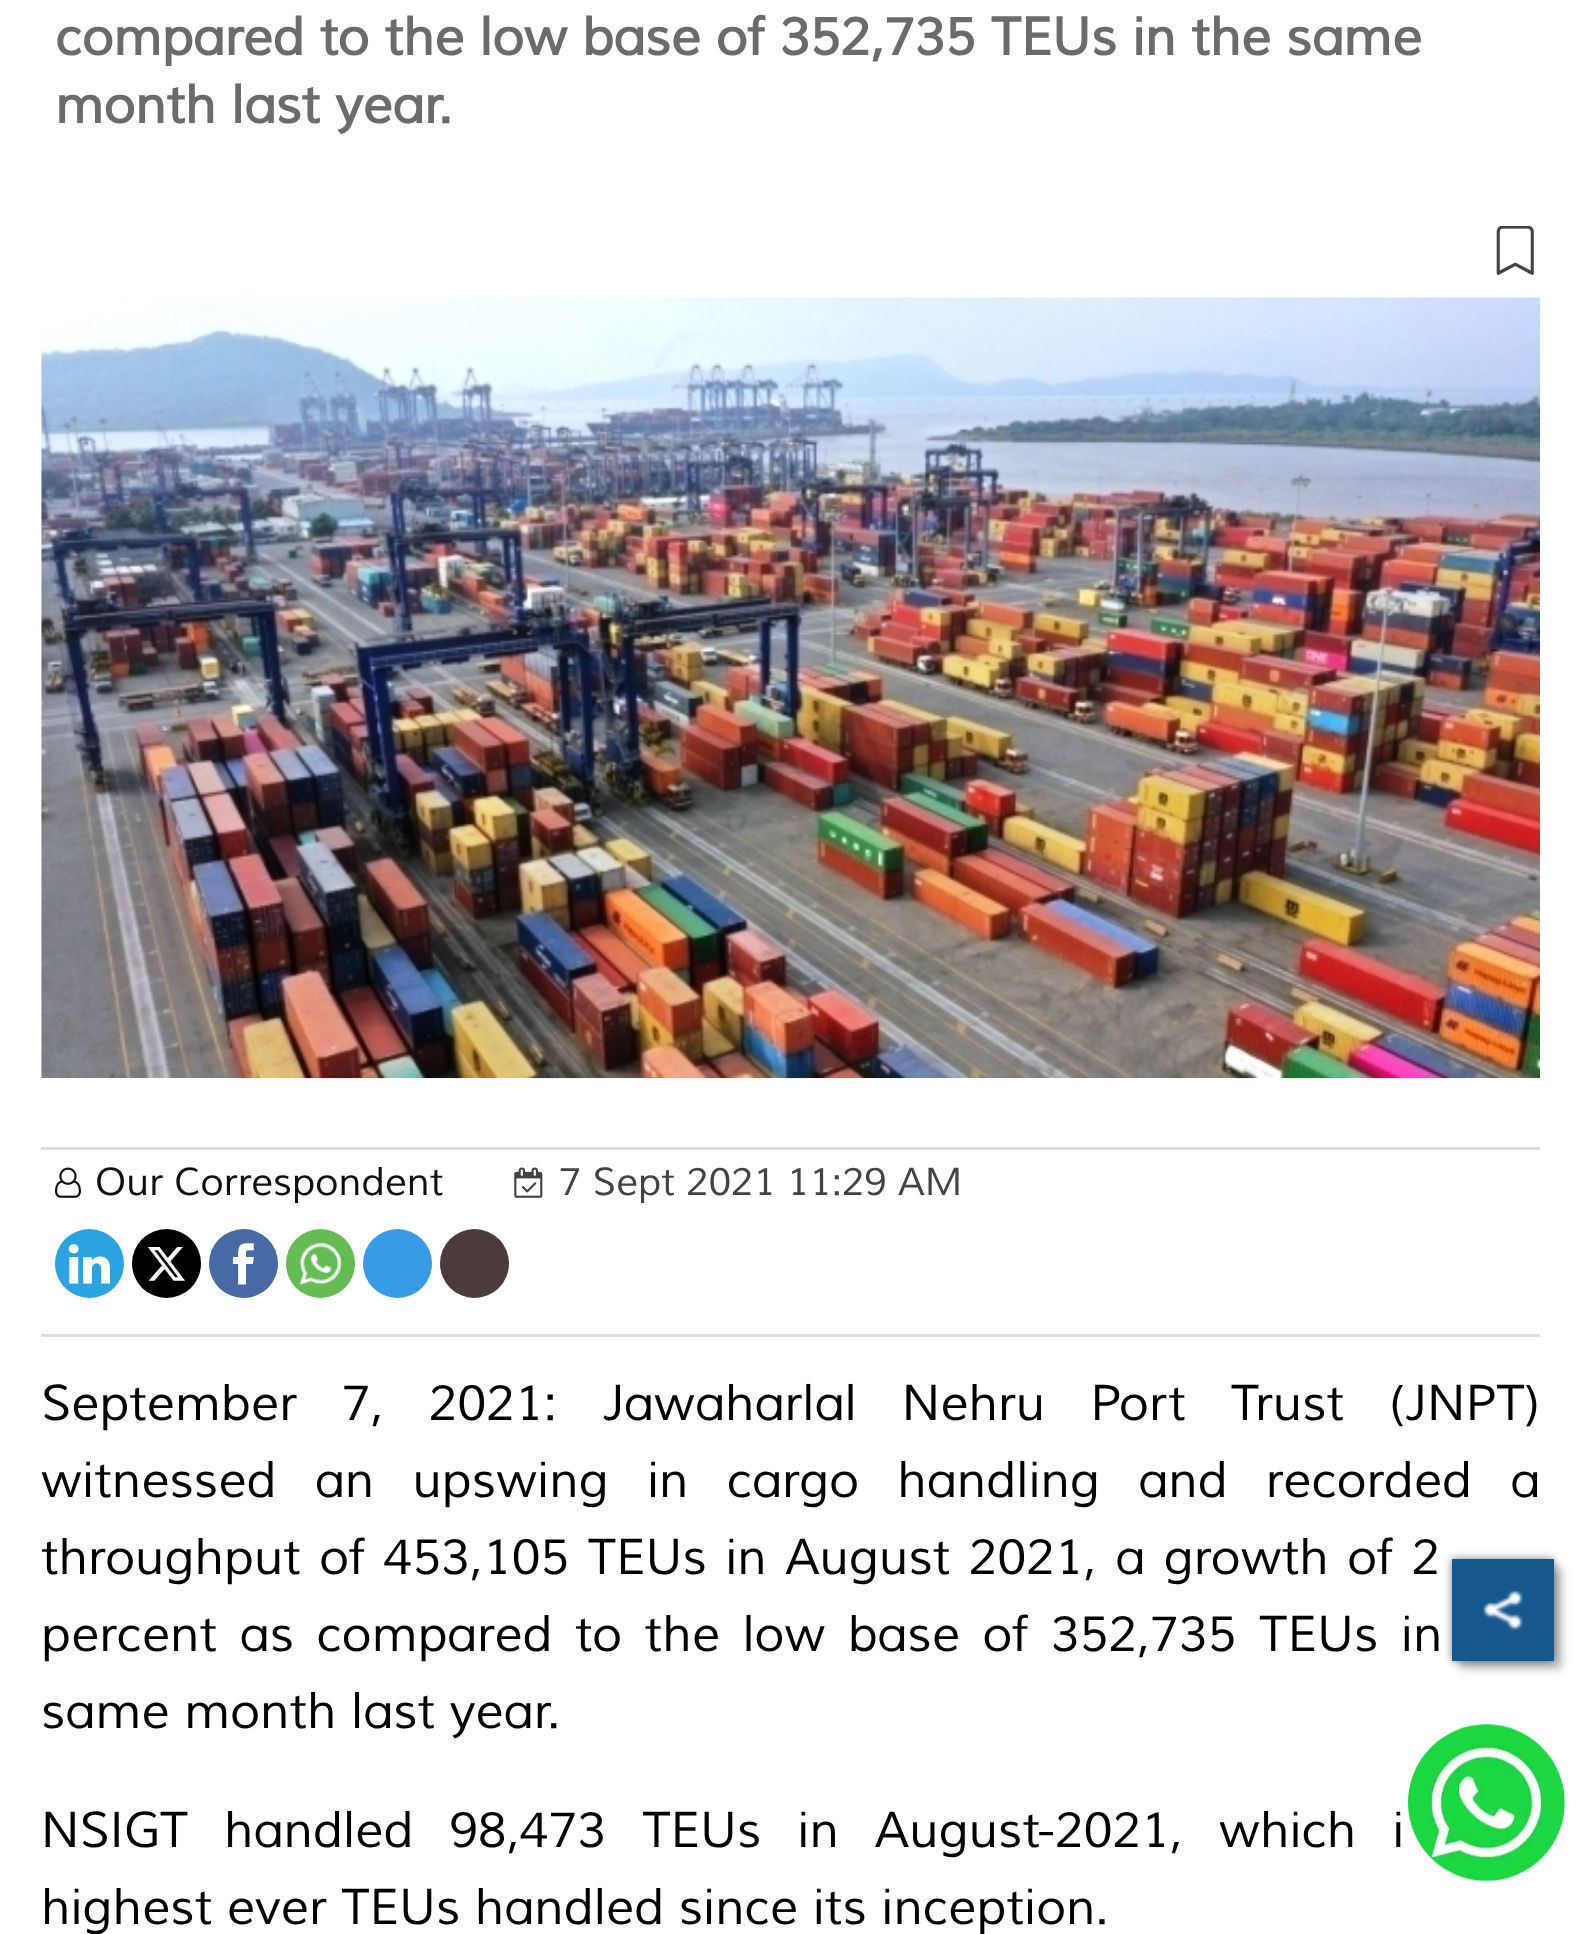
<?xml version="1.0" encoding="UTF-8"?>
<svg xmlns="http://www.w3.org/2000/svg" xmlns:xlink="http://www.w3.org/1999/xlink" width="1580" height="1934">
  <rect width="100%" height="100%" fill="#ffffff" />
  <image x="1496" y="226" width="38" height="49" xlink:href="image1.png" />
  <image x="41" y="297" width="1499" height="782" xlink:href="image2.png" />
  <rect x="41" y="1147" width="1499" height="3" fill="#dddddd" />
  <rect x="41" y="1334" width="1499" height="3" fill="#dddddd" />
  <image x="55" y="1167" width="26" height="31" xlink:href="image3.png" />
  <image x="514" y="1167" width="29" height="31" xlink:href="image4.png" />
  <circle cx="89.5" cy="1263.5" r="34.5" fill="#2ba3e1" />
  <image x="68" y="1244" width="42" height="40" xlink:href="image5.png" />
  <circle cx="166.5" cy="1263.5" r="34.5" fill="#000000" />
  <image x="147" y="1247" width="38" height="34" xlink:href="image6.png" />
  <circle cx="243.5" cy="1263.5" r="34.5" fill="#4769a5" />
  <image x="232" y="1243" width="22" height="42" xlink:href="image7.png" />
  <circle cx="320.5" cy="1263.5" r="34.5" fill="#65bc54" />
  <image x="299" y="1243" width="42" height="42" xlink:href="image8.png" />
  <circle cx="397.5" cy="1263.5" r="34.5" fill="#379be5" />
  <circle cx="474.5" cy="1263.5" r="34.5" fill="#4b3b3b" />
  <rect x="1460" y="1568" width="102" height="101" fill="#000000" fill-opacity="0.25" filter="blur(4px)" />
  <rect x="1452" y="1559" width="102" height="102" fill="#000000" fill-opacity="0.5" filter="blur(4px)" />
  <rect x="1452" y="1559" width="102" height="102" fill="#16588d" />
  <image x="1483" y="1590" width="40" height="41" xlink:href="image9.png" />
  <image x="1408" y="1724" width="157" height="158" xlink:href="image10.png" />
  <text x="55" y="55" style="font-family: Muli; font-size: 52.25px; font-weight: bold; font-style: italic; fill: #6b6b6b">compared to the low base of 352,735 TEUs in the same</text>
  <text x="55" y="123" style="font-family: Muli; font-size: 52.25px; font-weight: bold; font-style: italic; fill: #6b6b6b">month last year.</text>
  <text x="95" y="1195" style="font-family: Muli; font-size: 38.5px; font-style: italic; fill: #101010">Our Correspondent</text>
  <text x="559" y="1195" style="font-family: Muli; font-size: 38.5px; font-style: italic; fill: #434343">7 Sept 2021 11:29 AM</text>
  <text x="41" y="1420" word-spacing="30.5" style="font-family: Muli; font-size: 49.5px; font-style: italic; fill: #000000">September 7, 2021: Jawaharlal Nehru Port Trust (JNPT)</text>
  <text x="41" y="1497" word-spacing="23.75" style="font-family: Muli; font-size: 49.5px; font-style: italic; fill: #000000">witnessed an upswing in cargo handling and recorded a</text>
  <text x="41" y="1574" word-spacing="3.9" style="font-family: Muli; font-size: 49.5px; font-style: italic; fill: #000000">throughput of 453,105 TEUs in August 2021, a growth of 2</text>
  <text x="41" y="1651" word-spacing="8" style="font-family: Muli; font-size: 49.5px; font-style: italic; fill: #000000">percent as compared to the low base of 352,735 TEUs in</text>
  <text x="41" y="1728" style="font-family: Muli; font-size: 49.5px; font-style: italic; fill: #000000">same month last year.</text>
  <text x="41" y="1847" word-spacing="21.5" style="font-family: Muli; font-size: 49.5px; font-style: italic; fill: #000000">NSIGT handled 98,473 TEUs in August-2021, which i</text>
  <text x="41" y="1924" style="font-family: Muli; font-size: 49.5px; font-style: italic; fill: #000000">highest ever TEUs handled since its inception.</text>
</svg>
